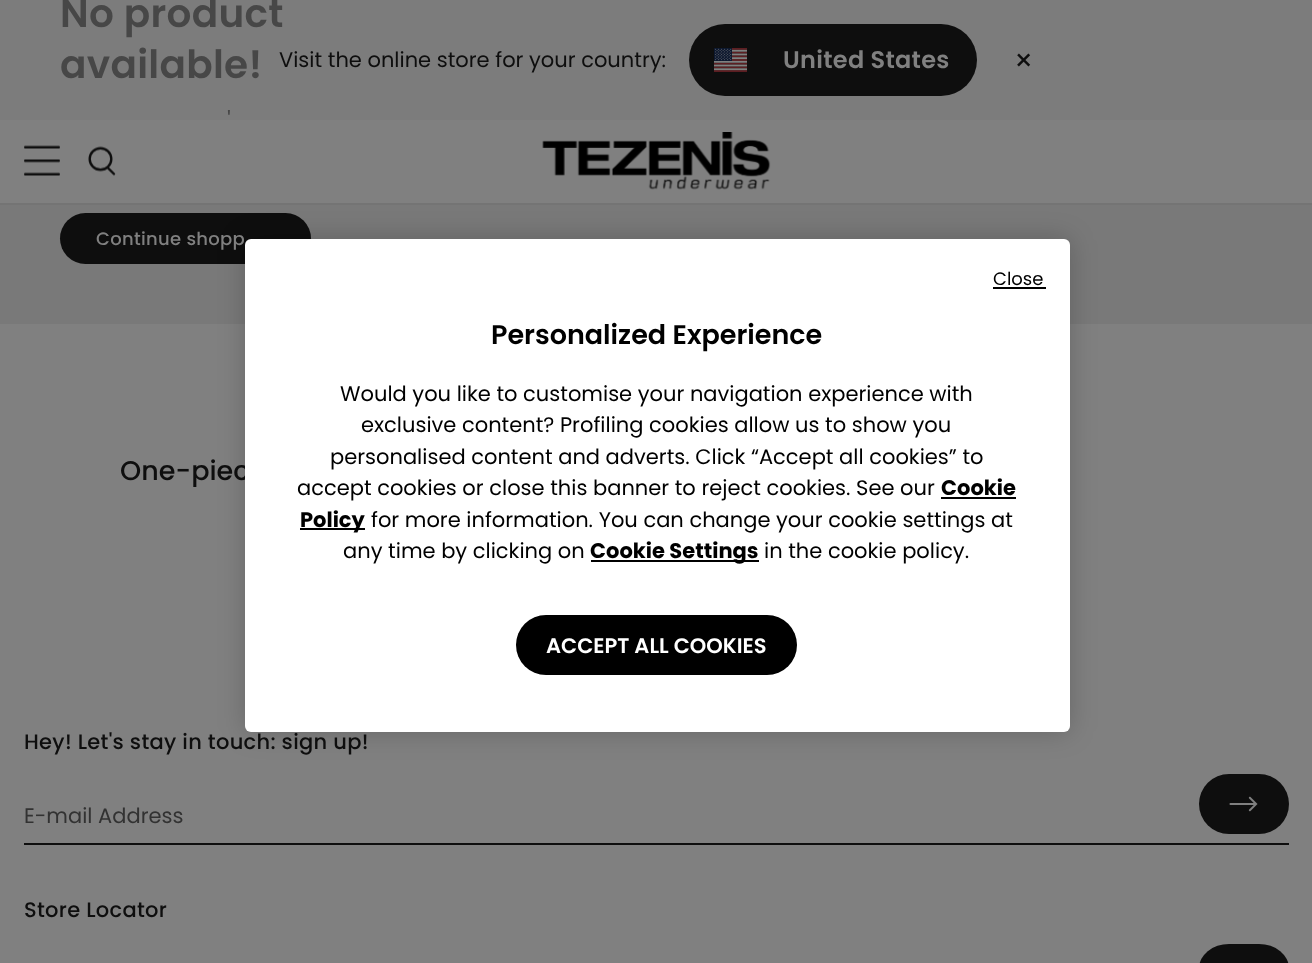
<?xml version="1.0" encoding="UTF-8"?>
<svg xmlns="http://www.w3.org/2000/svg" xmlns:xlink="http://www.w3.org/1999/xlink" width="1312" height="963">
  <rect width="100%" height="100%" fill="#808080" />
  <rect width="1312" height="324" fill="#797979" />
  <rect x="60" y="213" width="251" height="51" rx="25.5" fill="#0e0e0e" />
  <rect y="120" width="1312" height="83" fill="#808080" />
  <rect y="203" width="1312" height="2" fill="#747474" />
  <image x="24" y="145" width="36" height="31" xlink:href="image2.png" />
  <image x="88" y="146" width="28" height="30" xlink:href="image3.png" />
  <image x="542" y="132" width="229" height="58" xlink:href="image4.png" />
  <rect x="245" y="239" width="825" height="493" rx="6" fill="#000000" fill-opacity="0.2" filter="blur(13.5px)" />
  <rect x="24" y="843" width="1265" height="2" fill="#0e0e0e" />
  <rect x="1199" y="774" width="90" height="60" rx="30" fill="#0e0e0e" />
  <image x="1229" y="796" width="29" height="16" xlink:href="image5.png" />
  <rect x="1199" y="944" width="90" height="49" rx="30" fill="#0e0e0e" />
  <text x="60" y="27" style="font-family: Poppins; font-size: 39px; font-weight: 600; letter-spacing: 0.3px; fill: #0e0e0e">No product</text>
  <text x="60" y="78" style="font-family: Poppins; font-size: 39px; font-weight: 600; letter-spacing: 0.3px; fill: #0e0e0e">available!</text>
  <text x="227" y="129" style="font-family: Poppins; font-size: 24px; letter-spacing: 0.3px; fill: #0e0e0e">'</text>
  <text x="96" y="245" style="font-family: Poppins; font-size: 18px; font-weight: 500; letter-spacing: 0.3px; fill: #808080">Continue shopp</text>
  <text x="120" y="480" style="font-family: Poppins; font-size: 27px; font-weight: 500; fill: #0e0e0e">One-piec</text>
  <rect width="1312" height="120" fill="#808080" fill-opacity="0.5" />
  <text x="279" y="67" style="font-family: Poppins; font-size: 21px; fill: #0e0e0e">Visit the online store for your country:</text>
  <rect x="689" y="24" width="288" height="72" rx="36" fill="#0e0e0e" />
  <image x="714" y="48" width="33" height="24" xlink:href="image1.png" />
  <text x="783" y="68" style="font-family: Poppins; font-size: 24px; font-weight: 600; letter-spacing: 0.3px; fill: #808080">United States</text>
  <text x="1014" y="71" style="font-family: Poppins; font-size: 30px; letter-spacing: 0.3px; fill: #0e0e0e">×</text>
  <rect x="245" y="239" width="825" height="493" rx="6" fill="#ffffff" />
  <text x="993" y="285" style="font-family: Poppins; font-size: 18px; fill: #000000">Close</text>
  <rect x="993" y="287" width="53" height="2" fill="#000000" />
  <text x="491" y="344" style="font-family: Poppins; font-size: 27px; font-weight: 600; fill: #000000">Personalized Experience</text>
  <text x="340" y="401" style="font-family: Poppins; font-size: 21px; fill: #000000">Would you like to customise your navigation experience with</text>
  <text x="361" y="432" style="font-family: Poppins; font-size: 21px; fill: #000000">exclusive content? Profiling cookies allow us to show you</text>
  <text x="330" y="464" style="font-family: Poppins; font-size: 21px; fill: #000000">personalised content and adverts. Click “Accept all cookies” to</text>
  <text x="297" y="495" style="font-family: Poppins; font-size: 21px; fill: #000000">accept cookies or close this banner to reject cookies. See our</text>
  <text x="941" y="495" style="font-family: Poppins; font-size: 21px; font-weight: bold; fill: #000000">Cookie</text>
  <rect x="941" y="497" width="75" height="2" fill="#000000" />
  <rect x="300" y="528" width="65" height="2" fill="#000000" />
  <text x="300" y="527" style="font-family: Poppins; font-size: 21px; font-weight: bold; fill: #000000">Policy</text>
  <text x="371" y="527" style="font-family: Poppins; font-size: 21px; fill: #000000">for more information. You can change your cookie settings at</text>
  <text x="343" y="558" style="font-family: Poppins; font-size: 21px; fill: #000000">any time by clicking on</text>
  <rect x="591" y="560" width="168" height="2" fill="#000000" />
  <text x="590" y="558" style="font-family: Poppins; font-size: 21px; font-weight: bold; fill: #000000">Cookie Settings</text>
  <text x="764" y="558" style="font-family: Poppins; font-size: 21px; fill: #000000">in the cookie policy.</text>
  <rect x="516" y="615" width="281" height="60" rx="30" fill="#000000" />
  <text x="546" y="653" style="font-family: Poppins; font-size: 21px; font-weight: 600; fill: #ffffff">ACCEPT ALL COOKIES</text>
  <text x="24" y="749" style="font-family: Poppins; font-size: 21px; font-weight: 500; letter-spacing: 0.3px; fill: #0e0e0e">Hey! Let's stay in touch: sign up!</text>
  <text x="24" y="823" style="font-family: Poppins; font-size: 21px; fill: #323232">E-mail Address</text>
  <text x="24" y="917" style="font-family: Poppins; font-size: 21px; font-weight: 500; letter-spacing: 0.3px; fill: #0e0e0e">Store Locator</text>
</svg>
